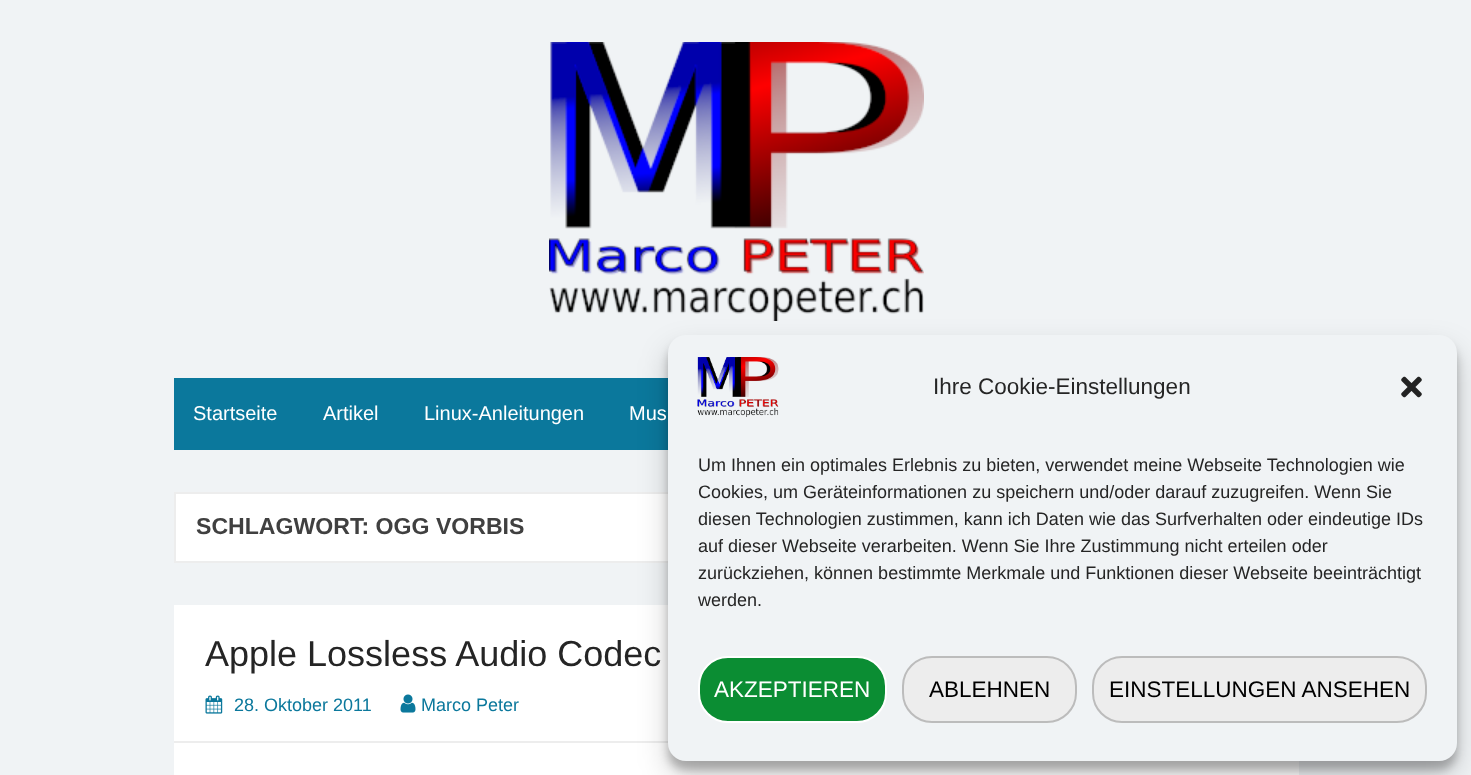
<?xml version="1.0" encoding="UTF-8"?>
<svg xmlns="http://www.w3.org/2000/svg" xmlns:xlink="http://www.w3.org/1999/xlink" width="1471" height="775">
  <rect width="100%" height="100%" fill="#f0f3f5" />
  <image x="549" y="42" width="375" height="279" xlink:href="image1.png" />
  <rect x="174" y="378" width="494" height="72" fill="#0b789c" />
  <rect x="176" y="494" width="492" height="67" fill="#ffffff" />
  <rect x="175" y="493" width="1123" height="69" fill="none" stroke="#ededed" stroke-width="2" />
  <rect x="174" y="605" width="1125" height="170" fill="#ffffff" />
  <rect x="174" y="741" width="494" height="2" fill="#ededed" />
  <image x="205" y="695" width="18" height="19" xlink:href="image2.png" />
  <image x="400" y="694" width="16" height="19" xlink:href="image3.png" />
  <rect x="668" y="344" width="789" height="426" rx="18" fill="#000000" fill-opacity="0.23" filter="blur(4.5px)" />
  <rect x="668" y="350" width="789" height="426" rx="18" fill="#000000" fill-opacity="0.19" filter="blur(15px)" />
  <rect x="668" y="335" width="789" height="426" rx="18" fill="#f0f3f5" />
  <image x="697" y="357" width="82" height="60" xlink:href="image4.png" />
  <image x="1401" y="376" width="21" height="22" xlink:href="image5.png" />
  <rect x="699" y="657" width="187" height="65" rx="29" fill="#0b8d33" stroke="#ffffff" stroke-width="2" />
  <rect x="903" y="657" width="173" height="65" rx="29" fill="#ededed" stroke="#bcbcbc" stroke-width="2" />
  <rect x="1093" y="657" width="333" height="65" rx="29" fill="#ededed" stroke="#bcbcbc" stroke-width="2" />
  <text x="193" y="420" style="font-family: Liberation Sans; font-size: 20px; fill: #ffffff">Startseite</text>
  <text x="323" y="420" style="font-family: Liberation Sans; font-size: 20px; fill: #ffffff">Artikel</text>
  <text x="424" y="420" style="font-family: Liberation Sans; font-size: 20px; fill: #ffffff">Linux-Anleitungen</text>
  <text x="629" y="420" style="font-family: Liberation Sans; font-size: 20px; fill: #ffffff">Mus</text>
  <text x="196" y="534" style="font-family: Liberation Sans; font-size: 23.1px; font-weight: bold; fill: #404040">SCHLAGWORT: OGG VORBIS</text>
  <text x="205" y="666" style="font-family: Liberation Sans; font-size: 36px; fill: #252525">Apple Lossless Audio Codec</text>
  <text x="234" y="711" style="font-family: Liberation Sans; font-size: 18px; fill: #0b789c">28. Oktober 2011</text>
  <text x="421" y="711" style="font-family: Liberation Sans; font-size: 18px; fill: #0b789c">Marco Peter</text>
  <text x="933" y="394" style="font-family: Liberation Sans; font-size: 22.5px; fill: #252525">Ihre Cookie-Einstellungen</text>
  <text x="698" y="471" style="font-family: Liberation Sans; font-size: 18px; fill: #252525">Um Ihnen ein optimales Erlebnis zu bieten, verwendet meine Webseite Technologien wie</text>
  <text x="698" y="498" style="font-family: Liberation Sans; font-size: 18px; fill: #252525">Cookies, um Geräteinformationen zu speichern und/oder darauf zuzugreifen. Wenn Sie</text>
  <text x="698" y="525" style="font-family: Liberation Sans; font-size: 18px; fill: #252525">diesen Technologien zustimmen, kann ich Daten wie das Surfverhalten oder eindeutige IDs</text>
  <text x="698" y="552" style="font-family: Liberation Sans; font-size: 18px; fill: #252525">auf dieser Webseite verarbeiten. Wenn Sie Ihre Zustimmung nicht erteilen oder</text>
  <text x="698" y="579" style="font-family: Liberation Sans; font-size: 18px; fill: #252525">zurückziehen, können bestimmte Merkmale und Funktionen dieser Webseite beeinträchtigt</text>
  <text x="698" y="606" style="font-family: Liberation Sans; font-size: 18px; fill: #252525">werden.</text>
  <text x="714" y="697" style="font-family: Liberation Sans; font-size: 22.5px; fill: #ffffff">AKZEPTIEREN</text>
  <text x="929" y="697" style="font-family: Liberation Sans; font-size: 22.5px; fill: #000000">ABLEHNEN</text>
  <text x="1109" y="697" style="font-family: Liberation Sans; font-size: 22.5px; fill: #000000">EINSTELLUNGEN ANSEHEN</text>
</svg>
